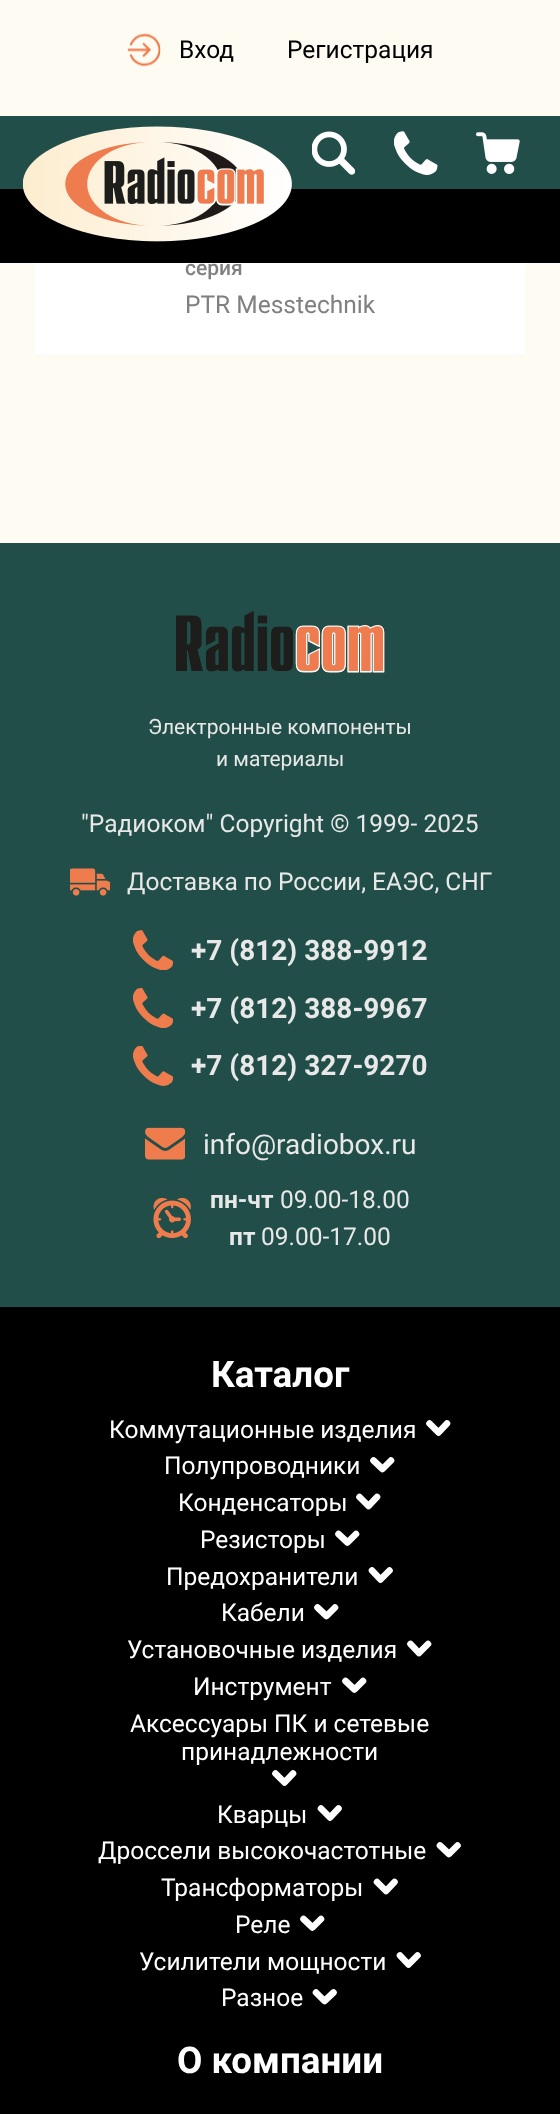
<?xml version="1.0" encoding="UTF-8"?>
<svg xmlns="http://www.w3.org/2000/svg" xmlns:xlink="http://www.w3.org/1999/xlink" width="560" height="2114">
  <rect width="100%" height="100%" fill="#fefbf2" />
  <image x="127" y="33" width="34" height="34" xlink:href="image1.png" />
  <rect y="116" width="560" height="73" fill="#214e49" />
  <rect y="189" width="560" height="74" fill="#000000" />
  <image x="23" y="126" width="269" height="116" xlink:href="image2.png" />
  <image x="312" y="131" width="43" height="44" xlink:href="image3.png" />
  <image x="394" y="131" width="44" height="44" xlink:href="image4.png" />
  <image x="476" y="132" width="44" height="42" xlink:href="image5.png" />
  <rect x="35" y="263" width="490" height="91" fill="#ffffff" />
  <rect y="543" width="560" height="764" fill="#214e49" />
  <image x="176" y="611" width="209" height="62" xlink:href="image6.png" />
  <image x="70" y="868" width="40" height="28" xlink:href="image7.png" />
  <image x="133" y="930" width="40" height="40" xlink:href="image8.png" />
  <image x="133" y="988" width="40" height="40" xlink:href="image9.png" />
  <image x="133" y="1046" width="40" height="40" xlink:href="image10.png" />
  <image x="145" y="1127" width="40" height="33" xlink:href="image11.png" />
  <image x="153" y="1198" width="38" height="40" xlink:href="image12.png" />
  <rect y="1307" width="560" height="807" fill="#000000" />
  <path d="M 429.5 1423.5 l 9 9 l 8.5 -9" fill="none" stroke="#ffffff" stroke-width="6.6" stroke-linecap="round" stroke-linejoin="round" />
  <path d="M 373.5 1460.5 l 9 8.5 l 8.5 -8.5 m -31.5 36.5 l 9 9 l 8.5 -9" fill="none" stroke="#ffffff" stroke-width="6.6" stroke-linecap="round" stroke-linejoin="round" />
  <path d="M 338.5 1534 l 9 8.5 l 8.5 -8.5 m 16 36.5 l 8.5 9 l 9 -9" fill="none" stroke="#ffffff" stroke-width="6.6" stroke-linecap="round" stroke-linejoin="round" />
  <path d="M 317.5 1607.5 l 9 8.5 l 8.5 -8.5" fill="none" stroke="#ffffff" stroke-width="6.6" stroke-linecap="round" stroke-linejoin="round" />
  <path d="M 410.5 1644 l 8.5 9 l 9 -9" fill="none" stroke="#ffffff" stroke-width="6.6" stroke-linecap="round" stroke-linejoin="round" />
  <path d="M 345.5 1681 l 9 8.5 l 8.5 -8.5" fill="none" stroke="#ffffff" stroke-width="6.6" stroke-linecap="round" stroke-linejoin="round" />
  <path d="M 275.5 1773.5 l 9 9 l 8.5 -9" fill="none" stroke="#ffffff" stroke-width="6.6" stroke-linecap="round" stroke-linejoin="round" />
  <path d="M 321 1808.5 l 9 9 l 8.5 -9" fill="none" stroke="#ffffff" stroke-width="6.6" stroke-linecap="round" stroke-linejoin="round" />
  <path d="M 440 1845.5 l 9 8.5 l 8.5 -8.5" fill="none" stroke="#ffffff" stroke-width="6.6" stroke-linecap="round" stroke-linejoin="round" />
  <path d="M 377 1882 l 9 9 l 8.5 -9" fill="none" stroke="#ffffff" stroke-width="6.6" stroke-linecap="round" stroke-linejoin="round" />
  <path d="M 303.5 1919 l 9 8.5 l 8.5 -8.5" fill="none" stroke="#ffffff" stroke-width="6.6" stroke-linecap="round" stroke-linejoin="round" />
  <path d="M 400 1955.5 l 8.5 9 l 9 -9" fill="none" stroke="#ffffff" stroke-width="6.6" stroke-linecap="round" stroke-linejoin="round" />
  <path d="M 316 1992.5 l 8.5 8.5 l 9 -8.5" fill="none" stroke="#ffffff" stroke-width="6.6" stroke-linecap="round" stroke-linejoin="round" />
  <text x="179" y="58" style="font-family: Roboto; font-size: 24.5px; fill: #000000">Вход</text>
  <text x="287" y="58" style="font-family: Roboto; font-size: 24.5px; fill: #000000">Регистрация</text>
  <text x="185" y="275" style="font-family: Roboto; font-size: 21px; font-weight: 500; fill: #808080">серия</text>
  <text x="185" y="313" style="font-family: Roboto; font-size: 24.5px; fill: #808080">PTR Messtechnik</text>
  <text x="148" y="734" style="font-family: Roboto; font-size: 21px; fill: #e8e8e8">Электронные компоненты</text>
  <text x="216" y="766" style="font-family: Roboto; font-size: 21px; fill: #e8e8e8">и материалы</text>
  <text x="81" y="832" style="font-family: Roboto; font-size: 24.5px; fill: #e8e8e8">"Радиоком" Copyright © 1999- 2025</text>
  <text x="127" y="890" style="font-family: Roboto; font-size: 24.5px; fill: #e8e8e8">Доставка по России, ЕАЭС, СНГ</text>
  <text x="191" y="960" style="font-family: Roboto; font-size: 28px; font-weight: bold; fill: #e8e8e8">+7 (812) 388-9912</text>
  <text x="191" y="1018" style="font-family: Roboto; font-size: 28px; font-weight: bold; fill: #e8e8e8">+7 (812) 388-9967</text>
  <text x="191" y="1075" style="font-family: Roboto; font-size: 28px; font-weight: bold; fill: #e8e8e8">+7 (812) 327-9270</text>
  <text x="203" y="1154" style="font-family: Roboto; font-size: 28px; fill: #e8e8e8">info@radiobox.ru</text>
  <text x="210" y="1208" style="font-family: Roboto; font-size: 24.5px; font-weight: bold; fill: #e8e8e8">пн-чт</text>
  <text x="280" y="1208" style="font-family: Roboto; font-size: 24.5px; fill: #e8e8e8">09.00-18.00</text>
  <text x="229" y="1245" style="font-family: Roboto; font-size: 24.5px; font-weight: bold; fill: #e8e8e8">пт</text>
  <text x="261" y="1245" style="font-family: Roboto; font-size: 24.5px; fill: #e8e8e8">09.00-17.00</text>
  <text x="211" y="1387" style="font-family: Roboto; font-size: 36.75px; font-weight: bold; fill: #ffffff">Каталог</text>
  <text x="109" y="1438" style="font-family: Roboto; font-size: 24.5px; fill: #ffffff">Коммутационные изделия</text>
  <text x="164" y="1474" style="font-family: Roboto; font-size: 24.5px; fill: #ffffff">Полупроводники</text>
  <text x="178" y="1511" style="font-family: Roboto; font-size: 24.5px; fill: #ffffff">Конденсаторы</text>
  <text x="200" y="1548" style="font-family: Roboto; font-size: 24.5px; fill: #ffffff">Резисторы</text>
  <text x="166" y="1585" style="font-family: Roboto; font-size: 24.5px; fill: #ffffff">Предохранители</text>
  <text x="221" y="1621" style="font-family: Roboto; font-size: 24.5px; fill: #ffffff">Кабели</text>
  <text x="127" y="1658" style="font-family: Roboto; font-size: 24.5px; fill: #ffffff">Установочные изделия</text>
  <text x="193" y="1695" style="font-family: Roboto; font-size: 24.5px; fill: #ffffff">Инструмент</text>
  <text x="130" y="1732" style="font-family: Roboto; font-size: 24.5px; fill: #ffffff">Аксессуары ПК и сетевые</text>
  <text x="181" y="1760" style="font-family: Roboto; font-size: 24.5px; fill: #ffffff">принадлежности</text>
  <text x="217" y="1823" style="font-family: Roboto; font-size: 24.5px; fill: #ffffff">Кварцы</text>
  <text x="98" y="1859" style="font-family: Roboto; font-size: 24.5px; fill: #ffffff">Дроссели высокочастотные</text>
  <text x="161" y="1896" style="font-family: Roboto; font-size: 24.5px; fill: #ffffff">Трансформаторы</text>
  <text x="235" y="1933" style="font-family: Roboto; font-size: 24.5px; fill: #ffffff">Реле</text>
  <text x="139" y="1970" style="font-family: Roboto; font-size: 24.5px; fill: #ffffff">Усилители мощности</text>
  <text x="221" y="2006" style="font-family: Roboto; font-size: 24.5px; fill: #ffffff">Разное</text>
  <text x="177" y="2073" style="font-family: Roboto; font-size: 36.75px; font-weight: bold; fill: #ffffff">О компании</text>
</svg>
